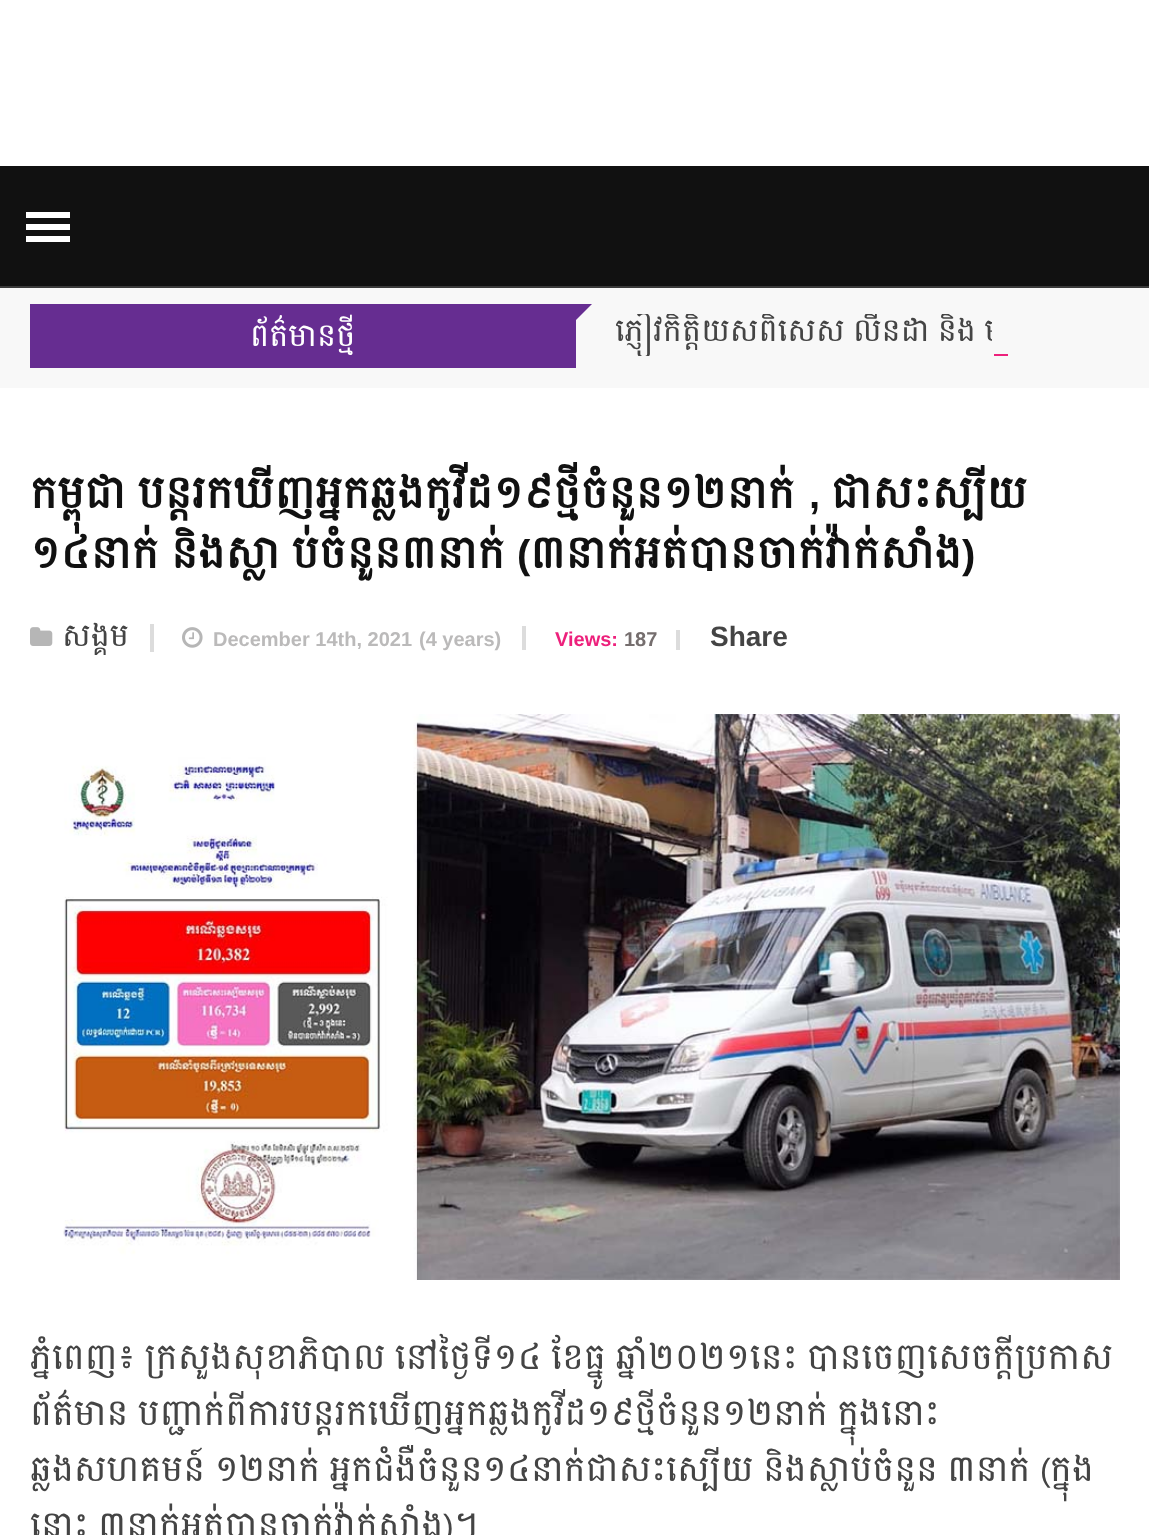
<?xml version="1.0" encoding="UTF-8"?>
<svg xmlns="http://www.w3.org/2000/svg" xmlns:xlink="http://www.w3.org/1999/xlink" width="1149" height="1535">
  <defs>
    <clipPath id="clip1"><rect x="616" y="314" width="504" height="42" /></clipPath>
  </defs>
  <rect width="100%" height="100%" fill="#ffffff" />
  <rect y="286" width="1149" height="2" fill="#3a3a3a" />
  <rect y="166" width="1149" height="120" fill="#111111" />
  <rect x="26" y="212" width="44" height="6" fill="#ffffff" />
  <rect x="26" y="224" width="44" height="6" fill="#ffffff" />
  <rect x="26" y="236" width="44" height="6" fill="#ffffff" />
  <rect y="288" width="1149" height="100" fill="#f8f8f8" />
  <rect x="30" y="304" width="546" height="64" fill="#662d91" />
  <path d="M 576 304 h 16 l -16 16 z" fill="#662d91" />
  <rect x="150" y="624" width="4" height="28" fill="#dcdcdc" />
  <image x="30" y="627" width="23" height="19" xlink:href="image1.png" />
  <rect x="522" y="626" width="4" height="24" fill="#dcdcdc" />
  <image x="182" y="627" width="21" height="21" xlink:href="image2.png" />
  <rect x="676" y="630" width="4" height="20" fill="#dcdcdc" />
  <image x="63" y="714" width="1057" height="566" xlink:href="image3.png" />
  <text x="250" y="346" style="font-family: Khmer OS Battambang; font-size: 28px; fill: #ffffff">ព័ត៌មានថ្មី</text>
  <g clip-path="url(#clip1)">
    <text x="615" y="341" style="font-family: Khmer OS Battambang; font-size: 28px; fill: #444444">ភ្ញៀវកិត្តិយសពិសេស លីនដា និង ម</text>
  </g>
  <rect x="992" y="320" width="10" height="21" fill="#f8f8f8" />
  <rect x="994" y="354" width="14" height="2" fill="#ed217c" />
  <text x="30" y="508" style="font-family: Khmer OS Battambang; font-size: 40px; font-weight: bold; fill: #111111">កម្ពុជា បន្តរកឃើញអ្នកឆ្លងកូវីដ១៩ថ្មីចំនួន១២នាក់</text>
  <text x="809" y="508" style="font-family: Liberation Sans; font-size: 40px; font-weight: bold; fill: #111111">,</text>
  <text x="831" y="508" style="font-family: Khmer OS Battambang; font-size: 40px; font-weight: bold; fill: #111111">ជាសះស្បើយ</text>
  <text x="30" y="568" style="font-family: Khmer OS Battambang; font-size: 40px; font-weight: bold; fill: #111111">១៤នាក់ និងស្លា ប់ចំនួន៣នាក់</text>
  <text x="517" y="568" style="font-family: Liberation Sans; font-size: 40px; font-weight: bold; fill: #111111">(</text>
  <text x="530" y="568" style="font-family: Khmer OS Battambang; font-size: 40px; font-weight: bold; fill: #111111">៣នាក់អត់បានចាក់វ៉ាក់សាំង</text>
  <text x="962" y="568" style="font-family: Liberation Sans; font-size: 40px; font-weight: bold; fill: #111111">)</text>
  <text x="62" y="646" style="font-family: Khmer OS Battambang; font-size: 28px; fill: #444444">សង្គម</text>
  <text x="213" y="646" style="font-family: Liberation Sans; font-size: 20px; font-weight: bold; fill: #bbbaba">December 14th, 2021</text>
  <text x="419" y="646" style="font-family: Liberation Sans; font-size: 20px; font-weight: bold; fill: #bbbaba">(4 years)</text>
  <text x="555" y="646" style="font-family: Liberation Sans; font-size: 20px; font-weight: bold; fill: #ed217c">Views:</text>
  <text x="624" y="646" style="font-family: Liberation Sans; font-size: 20px; font-weight: bold; fill: #756e6e">187</text>
  <text x="710" y="646" style="font-family: Liberation Sans; font-size: 28px; font-weight: bold; fill: #444444">Share</text>
  <text x="30" y="1369" style="font-family: Khmer OS Battambang; font-size: 32px; fill: #444444">ភ្នំពេញ៖ ក្រសួងសុខាភិបាល នៅថ្ងៃទី១៤ ខែធ្នូ ឆ្នាំ២០២១នេះ បានចេញសេចក្តីប្រកាស</text>
  <text x="30" y="1425" style="font-family: Khmer OS Battambang; font-size: 32px; fill: #444444">ព័ត៌មាន បញ្ជាក់ពីការបន្តរកឃើញអ្នកឆ្លងកូវីដ១៩ថ្មីចំនួន១២នាក់ ក្នុងនោះ</text>
  <text x="30" y="1481" style="font-family: Khmer OS Battambang; font-size: 32px; fill: #444444">ឆ្លងសហគមន៍ ១២នាក់ អ្នកជំងឺចំនួន១៤នាក់ជាសះស្បើយ និងស្លាប់ចំនួន ៣នាក់</text>
  <text x="1040" y="1481" style="font-family: Liberation Sans; font-size: 32px; fill: #444444">(</text>
  <text x="1050" y="1481" style="font-family: Khmer OS Battambang; font-size: 32px; fill: #444444">ក្នុង</text>
  <text x="30" y="1537" style="font-family: Khmer OS Battambang; font-size: 32px; fill: #444444">នោះ ៣នាក់អត់បានចាក់វ៉ាក់សាំង</text>
  <text x="443" y="1537" style="font-family: Liberation Sans; font-size: 32px; fill: #444444">)</text>
  <text x="454" y="1537" style="font-family: Khmer OS Battambang; font-size: 32px; fill: #444444">។</text>
</svg>
